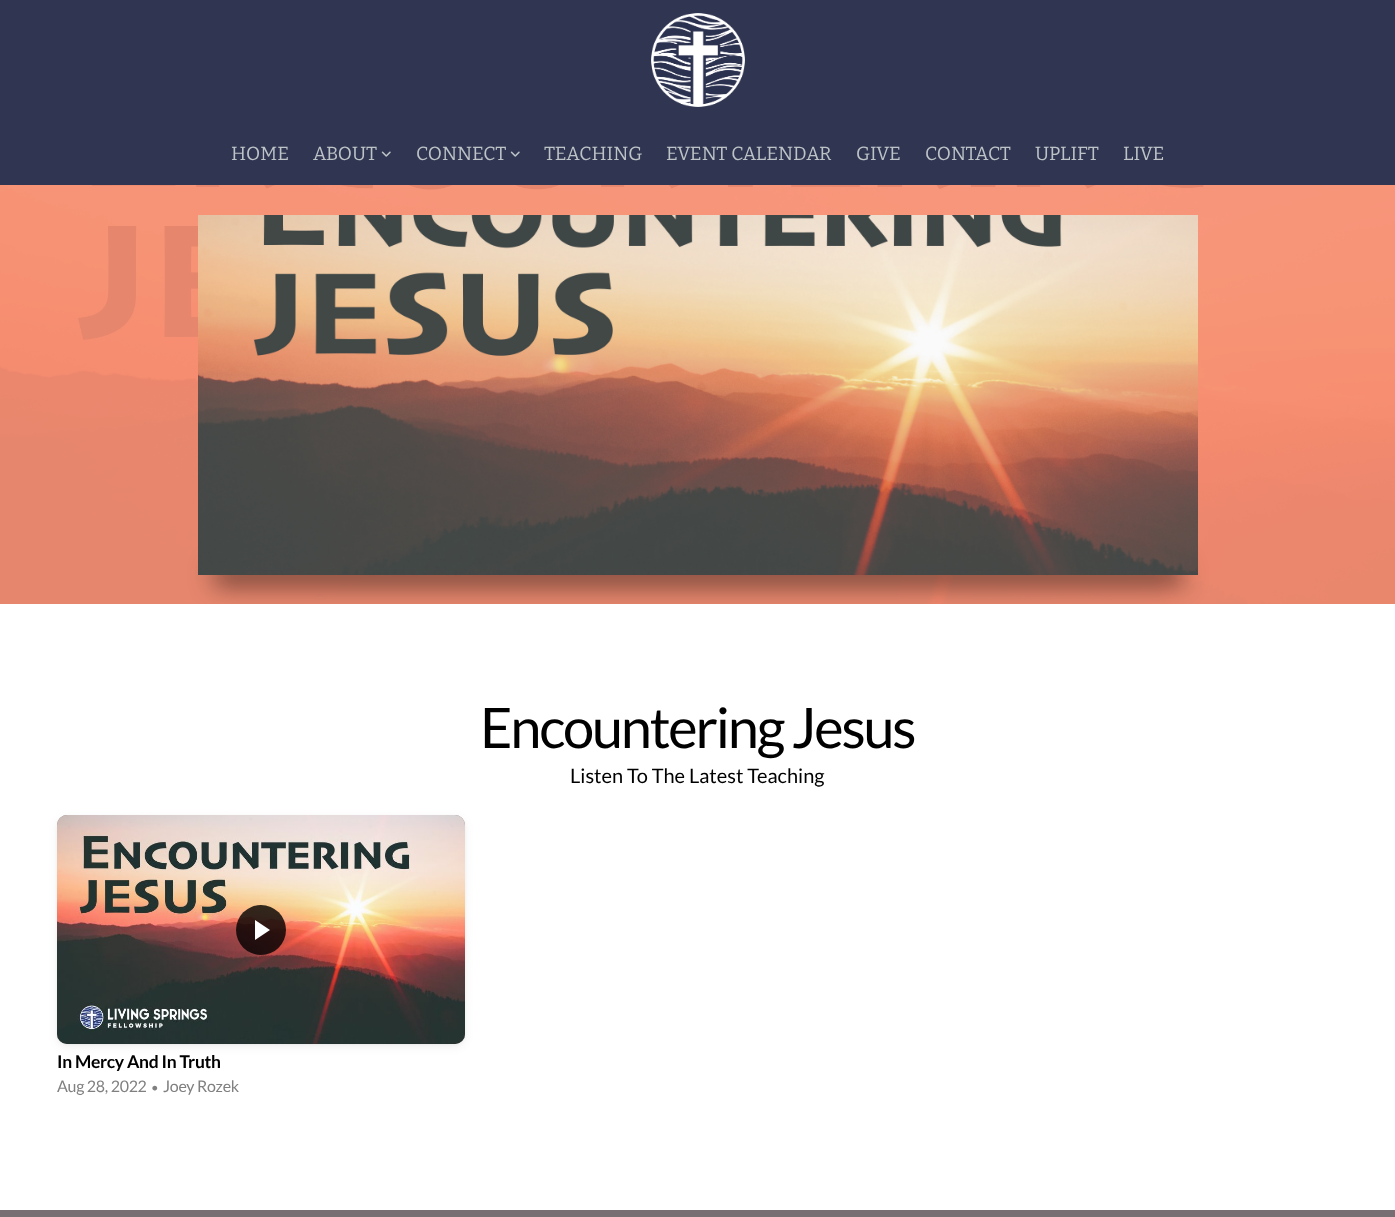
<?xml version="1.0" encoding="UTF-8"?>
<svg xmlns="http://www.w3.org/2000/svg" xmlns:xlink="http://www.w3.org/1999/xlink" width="1395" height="1217">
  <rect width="100%" height="100%" fill="#303551" />
  <image x="651" y="13" width="94" height="94" xlink:href="image1.png" />
  <image x="381" y="151" width="10" height="6" xlink:href="image2.png" />
  <image x="510" y="151" width="10" height="6" xlink:href="image2.png" />
  <image x="0" y="185" width="1395" height="419" xlink:href="image3.png" />
  <rect x="212" y="564" width="972" height="22" rx="11" fill="#000000" fill-opacity="0.5" filter="blur(12.5px)" />
  <image x="198" y="215" width="1000" height="360" xlink:href="image4.png" />
  <rect y="604" width="1395" height="606" fill="#ffffff" />
  <rect x="57" y="816" width="408" height="229" rx="10" fill="#000000" fill-opacity="0.04" filter="blur(1px)" />
  <rect x="57" y="818" width="408" height="229" rx="10" fill="#000000" fill-opacity="0.06" filter="blur(5px)" />
  <rect x="57" y="815" width="408" height="229" rx="10" fill="#907a6e" />
  <image x="57" y="815" width="408" height="229" xlink:href="image5.png" />
  <circle cx="261" cy="930" r="25" fill="#000000" fill-opacity="0.8" />
  <path d="M 255 940 v -20 l 15 10 z" fill="#ffffff" />
  <rect y="1210" width="1395" height="7" fill="#776e73" />
  <text x="231" y="160" style="font-family: Bitter; font-size: 19px; fill: #bdc3c7">HOME</text>
  <text x="313" y="160" style="font-family: Bitter; font-size: 19px; fill: #bdc3c7">ABOUT</text>
  <text x="416" y="160" style="font-family: Bitter; font-size: 19px; fill: #bdc3c7">CONNECT</text>
  <text x="544" y="160" style="font-family: Bitter; font-size: 19px; fill: #bdc3c7">TEACHING</text>
  <text x="666" y="160" style="font-family: Bitter; font-size: 19px; fill: #bdc3c7">EVENT CALENDAR</text>
  <text x="856" y="160" style="font-family: Bitter; font-size: 19px; fill: #bdc3c7">GIVE</text>
  <text x="925" y="160" style="font-family: Bitter; font-size: 19px; fill: #bdc3c7">CONTACT</text>
  <text x="1035" y="160" style="font-family: Bitter; font-size: 19px; fill: #bdc3c7">UPLIFT</text>
  <text x="1123" y="160" style="font-family: Bitter; font-size: 19px; fill: #bdc3c7">LIVE</text>
  <text x="480" y="748" style="font-family: Lato; font-size: 56px; letter-spacing: -2.25px; fill: #000000">Encountering Jesus</text>
  <text x="570" y="783" style="font-family: Lato; font-size: 20px; fill: #000000">Listen To The Latest Teaching</text>
  <text x="57" y="1068" style="font-family: Lato; font-size: 17.5px; font-weight: bold; letter-spacing: -0.3px; fill: #000000">In Mercy And In Truth</text>
  <text x="57" y="1092" style="font-family: Lato; font-size: 16px; letter-spacing: -0.3px; fill: #808080">Aug 28, 2022</text>
  <text x="151" y="1092" style="font-family: Lato; font-size: 13px; letter-spacing: -0.3px; fill: #808080">•</text>
  <text x="163" y="1092" style="font-family: Lato; font-size: 16px; letter-spacing: -0.3px; fill: #808080">Joey Rozek</text>
</svg>
